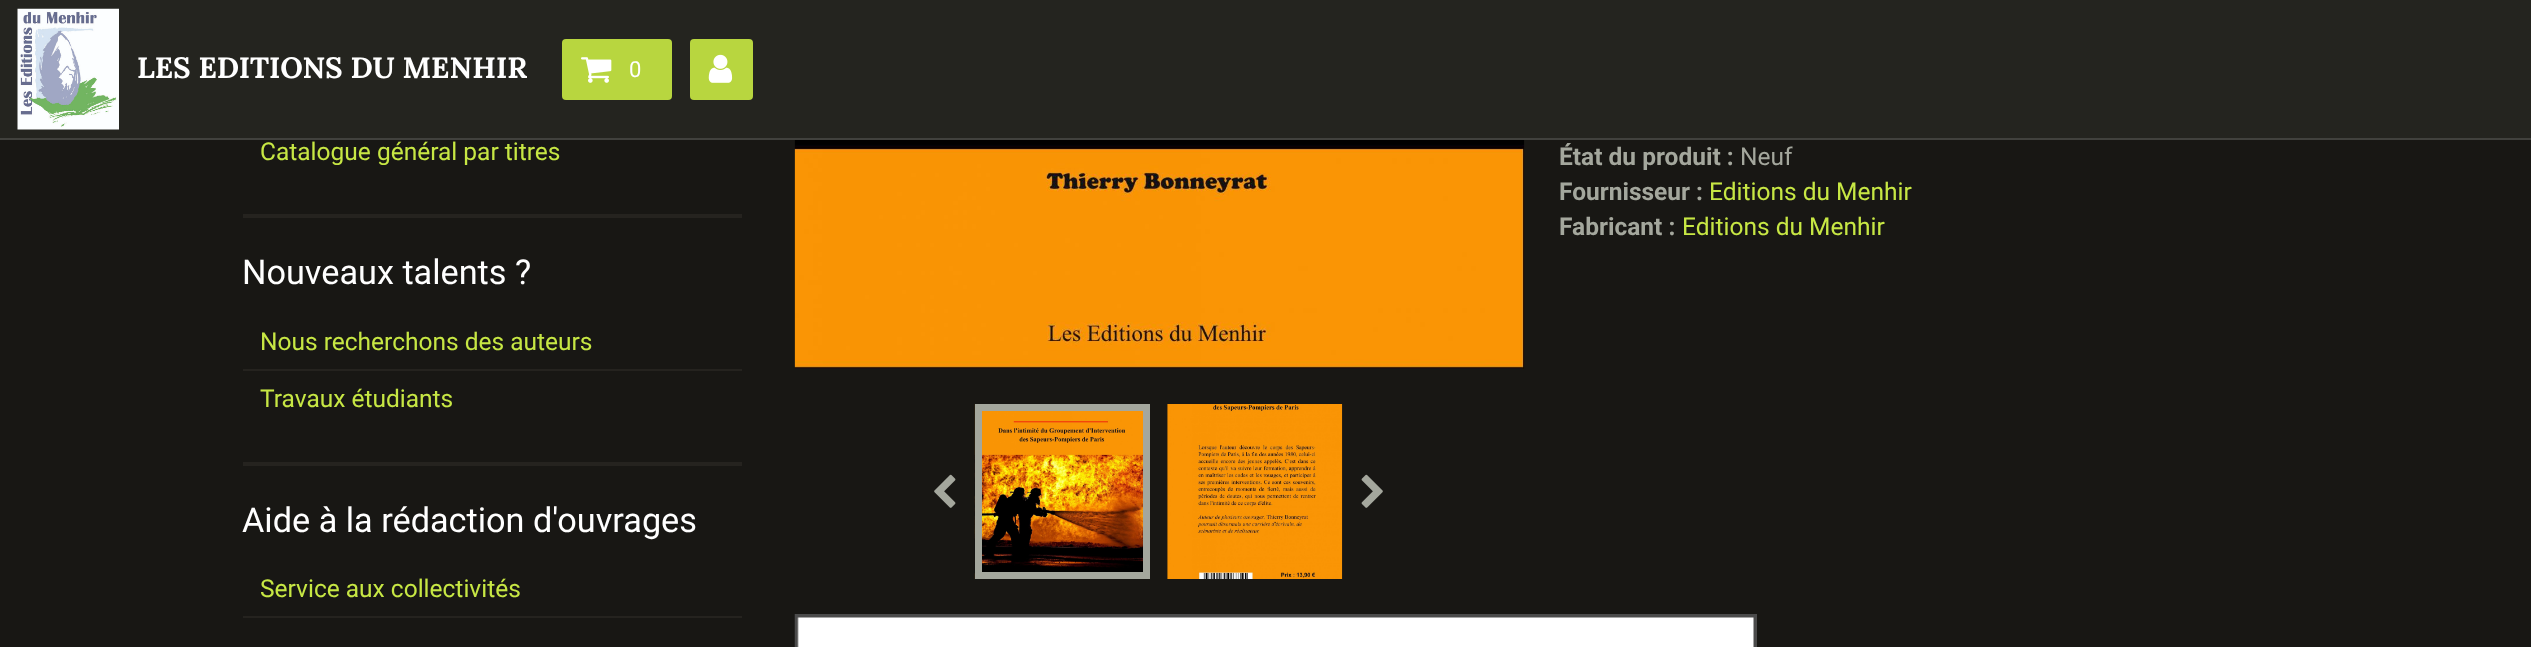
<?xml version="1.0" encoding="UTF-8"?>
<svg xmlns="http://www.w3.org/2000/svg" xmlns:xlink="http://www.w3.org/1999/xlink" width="2531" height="647">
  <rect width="100%" height="100%" fill="#181714" />
  <rect width="2531" height="138" fill="#24241f" />
  <rect y="138" width="2531" height="2" fill="#41413d" />
  <image x="17" y="8" width="102" height="122" xlink:href="image1.png" />
  <rect x="562" y="39" width="110" height="61" rx="4" fill="#b8d63f" />
  <image x="581" y="57" width="31" height="26" xlink:href="image2.png" />
  <rect x="690" y="39" width="63" height="61" rx="4" fill="#b8d63f" />
  <image x="708" y="54" width="25" height="29" xlink:href="image3.png" />
  <rect x="243" y="214" width="499" height="4" fill="#25231f" />
  <rect x="243" y="462" width="499" height="4" fill="#25231f" />
  <rect x="243" y="369" width="499" height="2" fill="#25231f" />
  <rect x="243" y="616" width="499" height="2" fill="#25231f" />
  <image x="794" y="140" width="731" height="229" xlink:href="image4.png" />
  <image x="934" y="474" width="22" height="34" xlink:href="image5.png" />
  <image x="974" y="404" width="169" height="175" xlink:href="image6.png" />
  <image x="1167" y="404" width="176" height="175" xlink:href="image7.png" />
  <rect x="978.5" y="407.5" width="168" height="168" fill="none" stroke="#a4a79d" stroke-width="7" />
  <image x="1361" y="474" width="22" height="34" xlink:href="image8.png" />
  <image x="794" y="614" width="963" height="33" xlink:href="image9.png" />
  <text x="137" y="78" style="font-family: Lora; font-size: 29.4px; font-weight: bold; fill: #ffffff">LES EDITIONS DU MENHIR</text>
  <text x="629" y="77" style="font-family: Roboto; font-size: 22px; fill: #ffffff">0</text>
  <text x="260" y="160" style="font-family: Roboto; font-size: 24.5px; fill: #c7e744">Catalogue général par titres</text>
  <text x="242" y="284" style="font-family: Roboto; font-size: 34.25px; fill: #ffffff">Nouveaux talents ?</text>
  <text x="260" y="350" style="font-family: Roboto; font-size: 24.5px; fill: #c7e744">Nous recherchons des auteurs</text>
  <text x="260" y="407" style="font-family: Roboto; font-size: 24.5px; fill: #c7e744">Travaux étudiants</text>
  <text x="242" y="532" style="font-family: Roboto; font-size: 34.25px; fill: #ffffff">Aide à la rédaction d'ouvrages</text>
  <text x="260" y="597" style="font-family: Roboto; font-size: 24.5px; fill: #c7e744">Service aux collectivités</text>
  <text x="1559" y="165" style="font-family: Roboto; font-size: 24.5px; font-weight: bold; fill: #a4a79d">État du produit :</text>
  <text x="1740" y="165" style="font-family: Roboto; font-size: 24.5px; fill: #a4a79d">Neuf</text>
  <text x="1559" y="200" style="font-family: Roboto; font-size: 24.5px; font-weight: bold; fill: #a4a79d">Fournisseur :</text>
  <text x="1709" y="200" style="font-family: Roboto; font-size: 24.5px; fill: #c7e744">Editions du Menhir</text>
  <text x="1559" y="235" style="font-family: Roboto; font-size: 24.5px; font-weight: bold; fill: #a4a79d">Fabricant :</text>
  <text x="1682" y="235" style="font-family: Roboto; font-size: 24.5px; fill: #c7e744">Editions du Menhir</text>
</svg>
